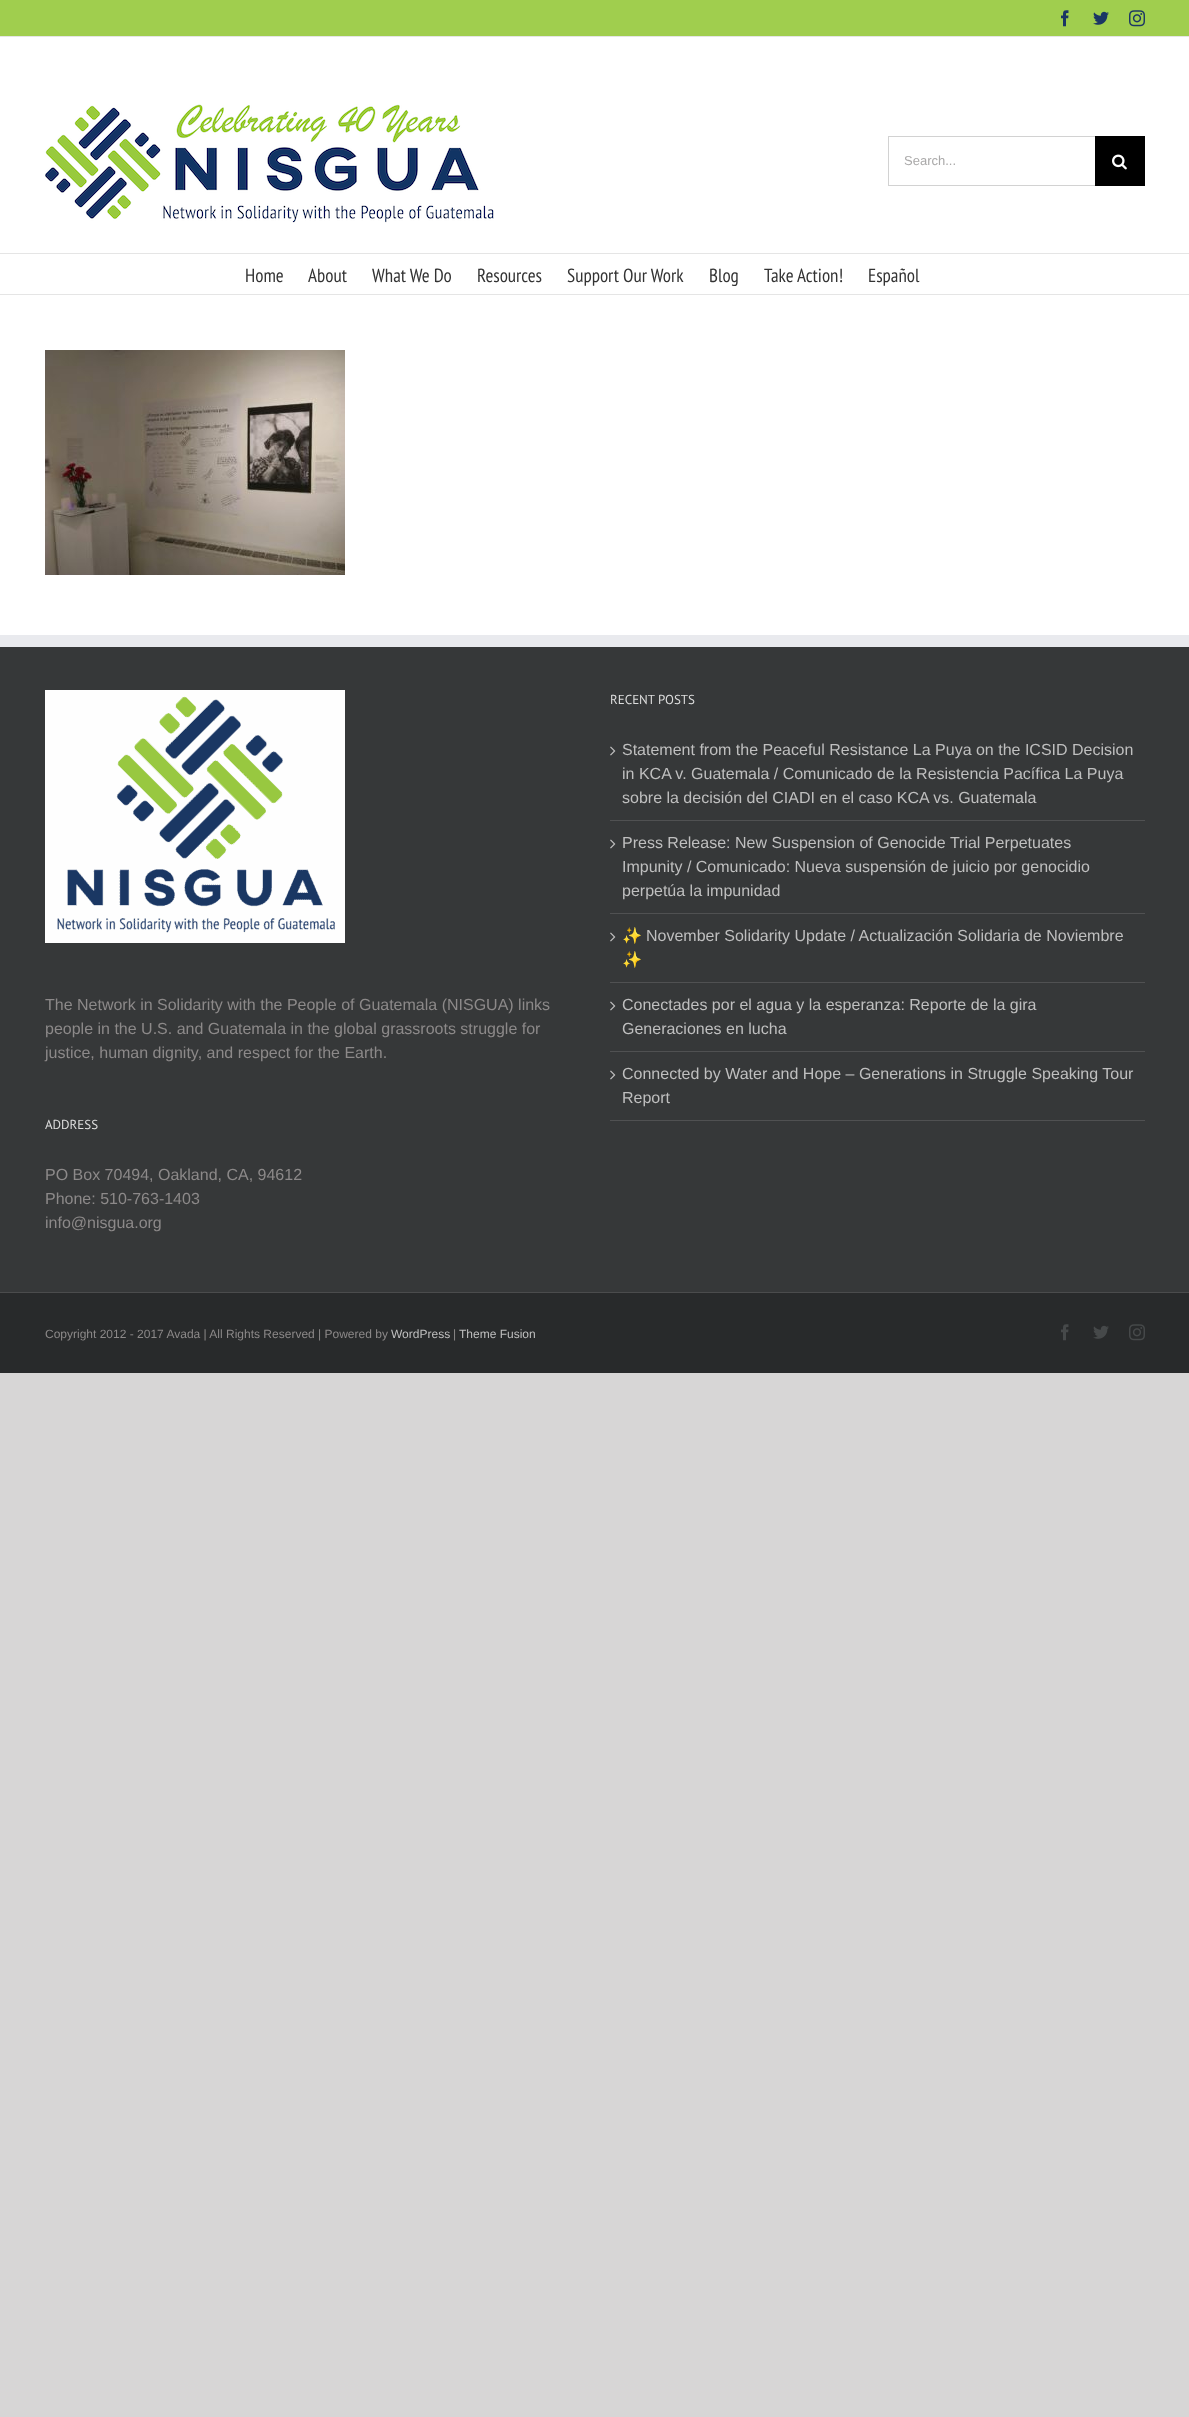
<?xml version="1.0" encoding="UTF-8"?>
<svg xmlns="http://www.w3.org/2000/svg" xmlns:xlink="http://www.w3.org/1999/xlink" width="1189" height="2417">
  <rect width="100%" height="100%" fill="#d7d6d6" />
  <rect width="1189" height="36" fill="#a0ce4e" />
  <rect y="36" width="1189" height="1" fill="#e5e5e5" />
  <image x="1061" y="10" width="8" height="17" xlink:href="image1.png" />
  <image x="1093" y="11" width="16" height="14" xlink:href="image2.png" />
  <image x="1129" y="10" width="16" height="17" xlink:href="image3.png" />
  <rect y="37" width="1189" height="216" fill="#ffffff" />
  <rect y="253" width="1189" height="1" fill="#e5e5e5" />
  <image x="45" y="104" width="449" height="119" xlink:href="image4.png" />
  <rect x="888" y="136" width="207" height="1" fill="#d2d2d2" />
  <rect x="888" y="185" width="207" height="1" fill="#d2d2d2" />
  <rect x="888" y="136" width="1" height="50" fill="#d2d2d2" />
  <rect x="1095" y="136" width="50" height="50" fill="#000000" />
  <image x="1112" y="154" width="15" height="16" xlink:href="image5.png" />
  <rect y="254" width="1189" height="40" fill="#ffffff" />
  <rect y="294" width="1189" height="1" fill="#e5e5e5" />
  <rect y="295" width="1189" height="340" fill="#ffffff" />
  <image x="45" y="350" width="300" height="225" xlink:href="image6.png" />
  <rect y="647" width="1189" height="645" fill="#363839" />
  <rect y="635" width="1189" height="12" fill="#e9eaee" />
  <image x="45" y="690" width="300" height="253" xlink:href="image7.png" />
  <rect x="610" y="820" width="535" height="1" fill="#505152" />
  <image x="610" y="746" width="6" height="10" xlink:href="image8.png" />
  <rect x="610" y="913" width="535" height="1" fill="#505152" />
  <image x="610" y="839" width="6" height="10" xlink:href="image8.png" />
  <rect x="610" y="982" width="535" height="1" fill="#505152" />
  <image x="610" y="932" width="6" height="10" xlink:href="image8.png" />
  <rect x="610" y="1051" width="535" height="1" fill="#505152" />
  <image x="610" y="1001" width="6" height="10" xlink:href="image8.png" />
  <rect x="610" y="1120" width="535" height="1" fill="#505152" />
  <image x="610" y="1070" width="6" height="10" xlink:href="image8.png" />
  <rect y="1293" width="1189" height="80" fill="#282a2b" />
  <rect y="1292" width="1189" height="1" fill="#4b4c4d" />
  <image x="1061" y="1324" width="8" height="17" xlink:href="image9.png" />
  <image x="1093" y="1325" width="16" height="14" xlink:href="image10.png" />
  <image x="1129" y="1324" width="16" height="17" xlink:href="image11.png" />
  <text x="904" y="165" style="font-family: Liberation Sans; font-size: 13px; fill: #aaa9a9">Search...</text>
  <text x="245" y="282" style="font-family: PT Sans Narrow; font-size: 19px; fill: #333333">Home</text>
  <text x="308" y="282" style="font-family: PT Sans Narrow; font-size: 19px; fill: #333333">About</text>
  <text x="372" y="282" style="font-family: PT Sans Narrow; font-size: 19px; fill: #333333">What We Do</text>
  <text x="477" y="282" style="font-family: PT Sans Narrow; font-size: 19px; fill: #333333">Resources</text>
  <text x="567" y="282" style="font-family: PT Sans Narrow; font-size: 19px; fill: #333333">Support Our Work</text>
  <text x="709" y="282" style="font-family: PT Sans Narrow; font-size: 19px; fill: #333333">Blog</text>
  <text x="764" y="282" style="font-family: PT Sans Narrow; font-size: 19px; fill: #333333">Take Action!</text>
  <text x="868" y="282" style="font-family: PT Sans Narrow; font-size: 19px; fill: #333333">Español</text>
  <text x="45" y="1010" style="font-family: Liberation Sans; font-size: 16px; fill: #8c8989">The Network in Solidarity with the People of Guatemala (NISGUA) links</text>
  <text x="45" y="1034" style="font-family: Liberation Sans; font-size: 16px; fill: #8c8989">people in the U.S. and Guatemala in the global grassroots struggle for</text>
  <text x="45" y="1058" style="font-family: Liberation Sans; font-size: 16px; fill: #8c8989">justice, human dignity, and respect for the Earth.</text>
  <text x="45" y="1129" style="font-family: PT Sans; font-size: 13px; fill: #dddddd">ADDRESS</text>
  <text x="45" y="1180" style="font-family: Liberation Sans; font-size: 16px; fill: #8c8989">PO Box 70494, Oakland, CA, 94612</text>
  <text x="45" y="1204" style="font-family: Liberation Sans; font-size: 16px; fill: #8c8989">Phone: 510-763-1403</text>
  <text x="45" y="1228" style="font-family: Liberation Sans; font-size: 16px; fill: #8c8989">info@nisgua.org</text>
  <text x="610" y="704" style="font-family: PT Sans; font-size: 13px; fill: #dddddd">RECENT POSTS</text>
  <text x="622" y="755" style="font-family: Liberation Sans; font-size: 16px; fill: #bfbfbf">Statement from the Peaceful Resistance La Puya on the ICSID Decision</text>
  <text x="622" y="779" style="font-family: Liberation Sans; font-size: 16px; fill: #bfbfbf">in KCA v. Guatemala / Comunicado de la Resistencia Pacífica La Puya</text>
  <text x="622" y="803" style="font-family: Liberation Sans; font-size: 16px; fill: #bfbfbf">sobre la decisión del CIADI en el caso KCA vs. Guatemala</text>
  <text x="622" y="848" style="font-family: Liberation Sans; font-size: 16px; fill: #bfbfbf">Press Release: New Suspension of Genocide Trial Perpetuates</text>
  <text x="622" y="872" style="font-family: Liberation Sans; font-size: 16px; fill: #bfbfbf">Impunity / Comunicado: Nueva suspensión de juicio por genocidio</text>
  <text x="622" y="896" style="font-family: Liberation Sans; font-size: 16px; fill: #bfbfbf">perpetúa la impunidad</text>
  <text x="622" y="941" style="font-family: Noto Color Emoji; font-size: 16px; fill: #bfbfbf">✨</text>
  <text x="646" y="941" style="font-family: Liberation Sans; font-size: 16px; fill: #bfbfbf">November Solidarity Update / Actualización Solidaria de Noviembre</text>
  <text x="622" y="965" style="font-family: Noto Color Emoji; font-size: 16px; fill: #bfbfbf">✨</text>
  <text x="622" y="1010" style="font-family: Liberation Sans; font-size: 16px; fill: #bfbfbf">Conectades por el agua y la esperanza: Reporte de la gira</text>
  <text x="622" y="1034" style="font-family: Liberation Sans; font-size: 16px; fill: #bfbfbf">Generaciones en lucha</text>
  <text x="622" y="1079" style="font-family: Liberation Sans; font-size: 16px; fill: #bfbfbf">Connected by Water and Hope – Generations in Struggle Speaking Tour</text>
  <text x="622" y="1103" style="font-family: Liberation Sans; font-size: 16px; fill: #bfbfbf">Report</text>
  <text x="45" y="1338" style="font-family: Liberation Sans; font-size: 12px; fill: #8c8989">Copyright 2012 - 2017 Avada | All Rights Reserved | Powered by</text>
  <text x="391" y="1338" style="font-family: Liberation Sans; font-size: 12px; fill: #bfbfbf">WordPress</text>
  <text x="453" y="1338" style="font-family: Liberation Sans; font-size: 12px; fill: #8c8989">|</text>
  <text x="459" y="1338" style="font-family: Liberation Sans; font-size: 12px; fill: #bfbfbf">Theme Fusion</text>
</svg>
